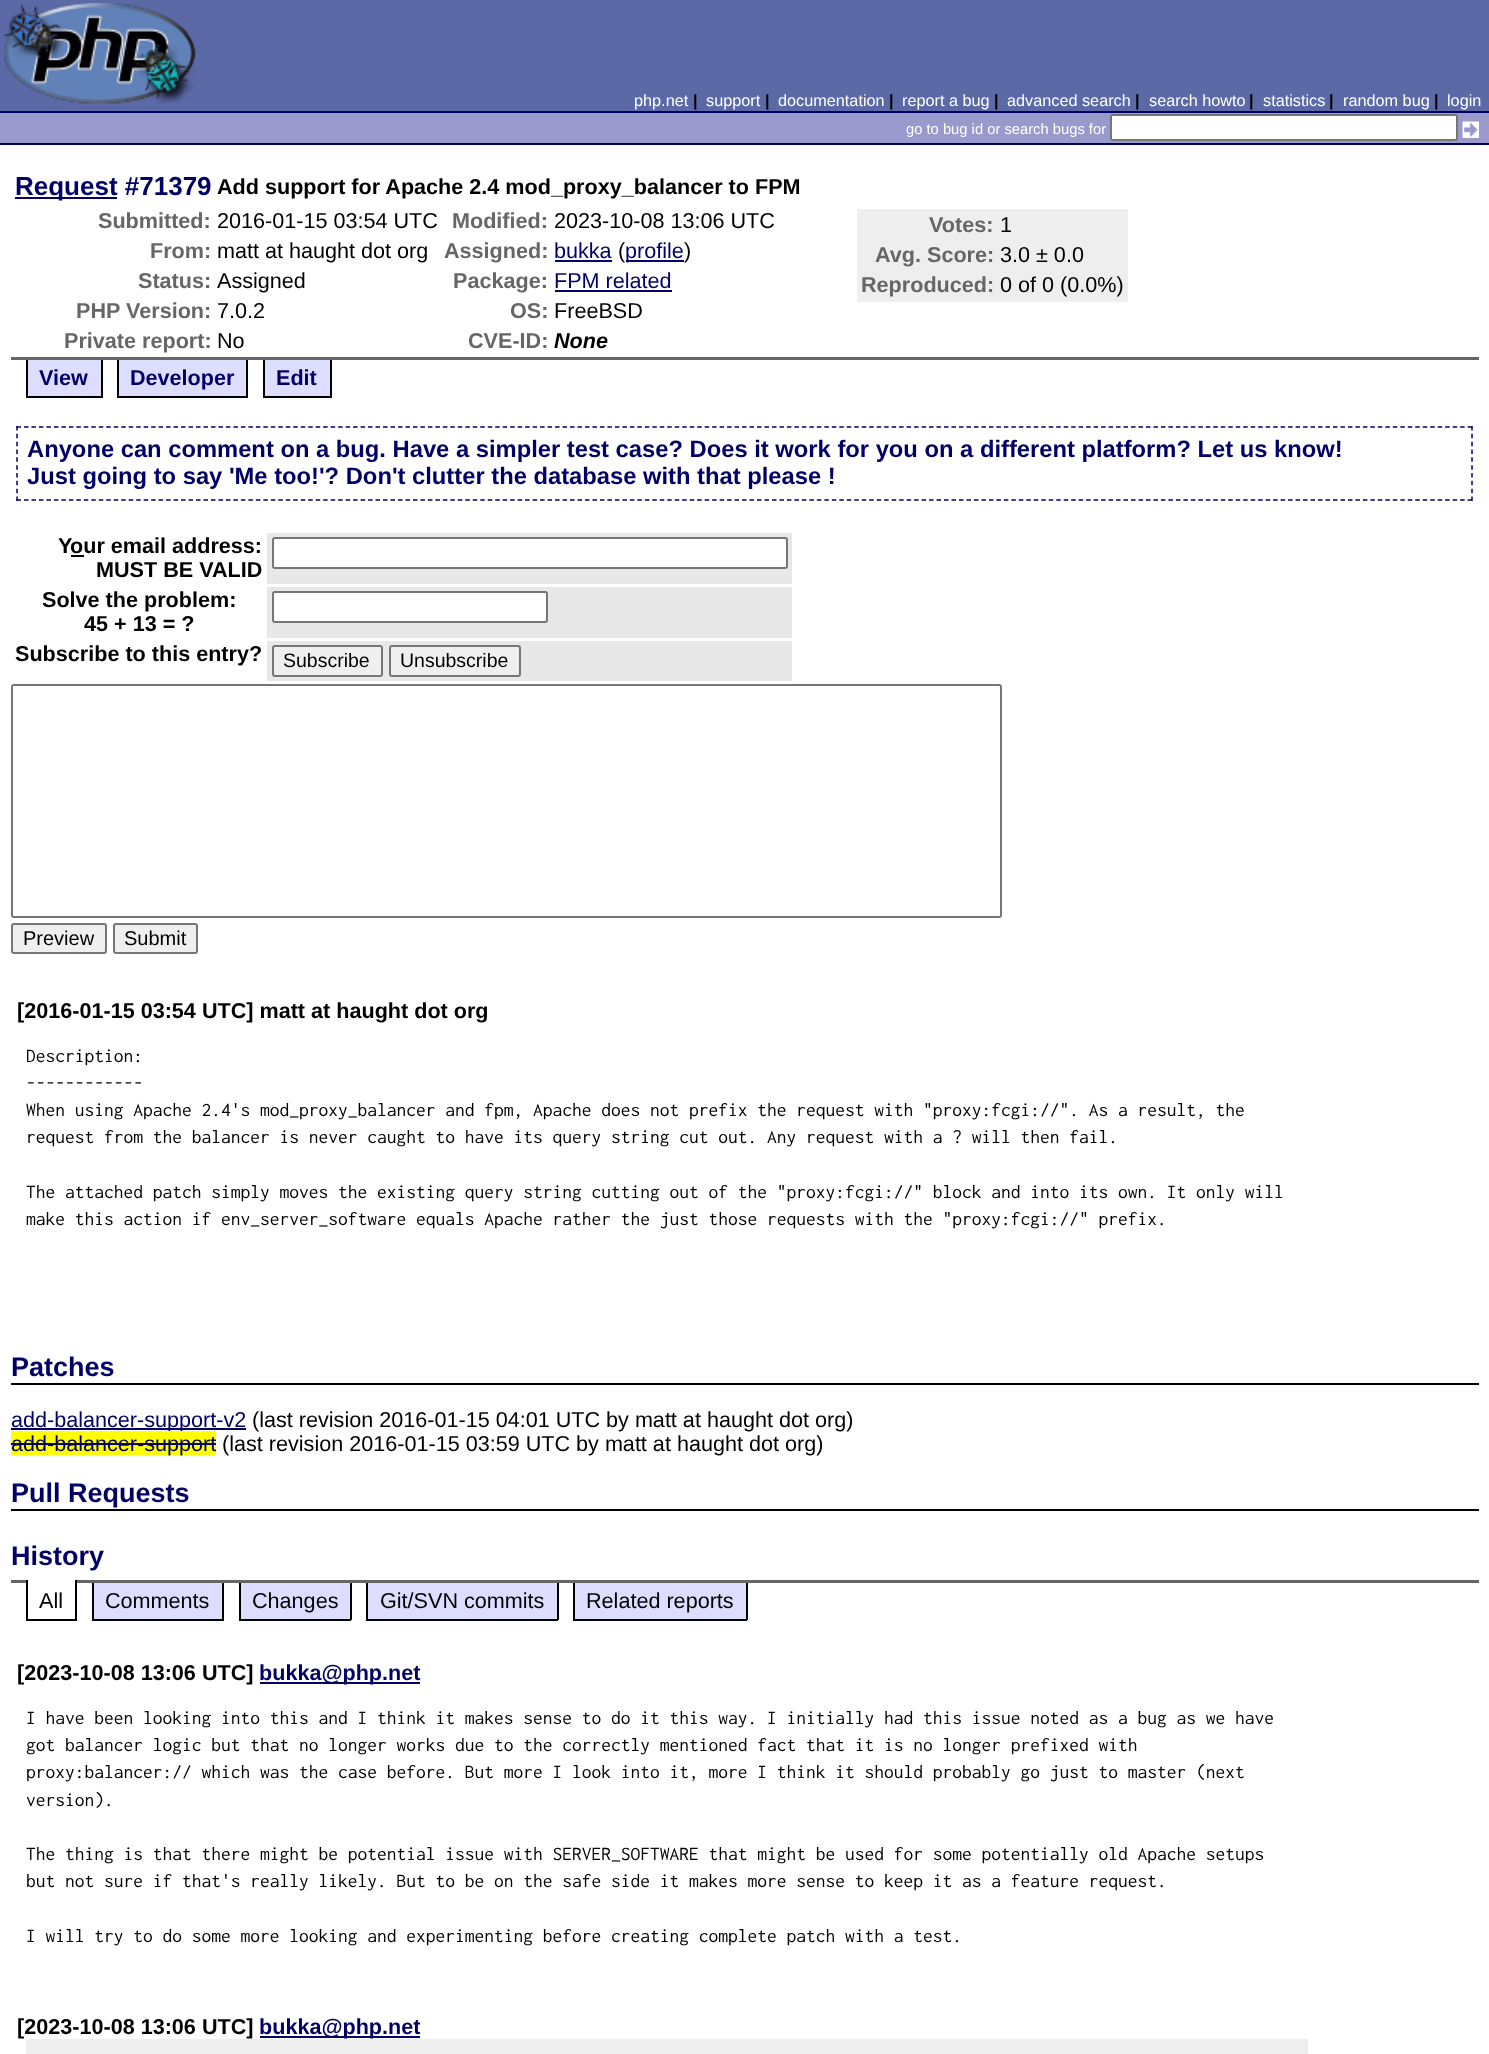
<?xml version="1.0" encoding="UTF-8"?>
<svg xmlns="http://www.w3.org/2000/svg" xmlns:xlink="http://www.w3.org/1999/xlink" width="1489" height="2054">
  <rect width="100%" height="100%" fill="#ffffff" />
  <rect width="1489" height="111" fill="#5b69a6" />
  <image x="4" y="3" width="192" height="101" xlink:href="image1.png" />
  <rect y="113" width="1489" height="30" fill="#9999cc" />
  <rect y="111" width="1489" height="2" fill="#000066" />
  <rect y="143" width="1489" height="2" fill="#000066" />
  <rect x="1111" y="115" width="346" height="25" rx="2" fill="#ffffff" stroke="#767676" stroke-width="2" />
  <image x="1462" y="121" width="17" height="17" xlink:href="image2.png" />
  <rect x="11" y="357" width="1468" height="3" fill="#666666" />
  <rect x="15" y="197" width="102" height="2" fill="#000066" />
  <rect x="857" y="209" width="271" height="93" fill="#eeeeee" />
  <rect x="555" y="260" width="57" height="2" fill="#000066" />
  <rect x="626" y="260" width="58" height="2" fill="#000066" />
  <rect x="555" y="290" width="117" height="2" fill="#000066" />
  <rect x="28" y="360" width="73" height="36" fill="#ddddff" />
  <rect x="101" y="360" width="2" height="38" fill="#000000" />
  <rect x="26" y="396" width="76" height="2" fill="#000000" />
  <rect x="26" y="360" width="2" height="38" fill="#000000" />
  <rect x="119" y="360" width="127" height="36" fill="#ddddff" />
  <rect x="246" y="360" width="2" height="38" fill="#000000" />
  <rect x="117" y="396" width="131" height="2" fill="#000000" />
  <rect x="117" y="360" width="2" height="38" fill="#000000" />
  <rect x="265" y="360" width="65" height="36" fill="#ddddff" />
  <rect x="330" y="360" width="2" height="38" fill="#000000" />
  <rect x="263" y="396" width="69" height="2" fill="#000000" />
  <rect x="263" y="360" width="2" height="38" fill="#000000" />
  <path d="M 16.5 427 h 1456.5" fill="none" stroke="#000066" stroke-width="1.5" stroke-dasharray="4.5 2.98" />
  <path d="M 1472 426 v 75" fill="none" stroke="#000066" stroke-width="1.5" stroke-dasharray="4.5 3.33" />
  <path d="M 16.5 500 h 1456.5" fill="none" stroke="#000066" stroke-width="1.5" stroke-dasharray="4.5 2.98" />
  <path d="M 17 426 v 75" fill="none" stroke="#000066" stroke-width="1.5" stroke-dasharray="4.5 3.33" />
  <rect x="71" y="555" width="13" height="2" fill="#000000" />
  <rect x="267" y="533" width="525" height="51" fill="#e8e8e8" />
  <rect x="273" y="538" width="514" height="30" rx="2" fill="#ffffff" stroke="#767676" stroke-width="2" />
  <rect x="267" y="587" width="525" height="51" fill="#e8e8e8" />
  <rect x="273" y="592" width="274" height="30" rx="2" fill="#ffffff" stroke="#767676" stroke-width="2" />
  <rect x="267" y="641" width="525" height="40" fill="#e8e8e8" />
  <rect x="273" y="646" width="109" height="30" rx="2" fill="#efefef" stroke="#767676" stroke-width="2" />
  <rect x="390" y="646" width="130" height="30" rx="2" fill="#efefef" stroke="#767676" stroke-width="2" />
  <rect x="12" y="685" width="989" height="232" rx="2" fill="none" stroke="#767676" stroke-width="2" />
  <rect x="12" y="924" width="94" height="29" rx="2" fill="#efefef" stroke="#767676" stroke-width="2" />
  <rect x="114" y="924" width="83" height="29" rx="2" fill="#efefef" stroke="#767676" stroke-width="2" />
  <rect x="11" y="1383" width="1468" height="2" fill="#000000" />
  <rect x="11" y="1428" width="235" height="2" fill="#000066" />
  <rect x="11" y="1509" width="1468" height="2" fill="#000000" />
  <rect x="11" y="1580" width="1468" height="3" fill="#666666" />
  <rect x="28" y="1580" width="47" height="3" fill="#ffffff" />
  <rect x="75" y="1580" width="2" height="40" fill="#000000" />
  <rect x="26" y="1619" width="51" height="2" fill="#000000" />
  <rect x="26" y="1580" width="2" height="40" fill="#000000" />
  <rect x="94" y="1583" width="128" height="36" fill="#ddddff" />
  <rect x="222" y="1583" width="2" height="37" fill="#000000" />
  <rect x="92" y="1619" width="132" height="2" fill="#000000" />
  <rect x="92" y="1583" width="2" height="37" fill="#000000" />
  <rect x="241" y="1583" width="109" height="36" fill="#ddddff" />
  <rect x="350" y="1583" width="2" height="37" fill="#000000" />
  <rect x="239" y="1619" width="112" height="2" fill="#000000" />
  <rect x="239" y="1583" width="2" height="37" fill="#000000" />
  <rect x="368" y="1583" width="189" height="36" fill="#ddddff" />
  <rect x="557" y="1583" width="2" height="37" fill="#000000" />
  <rect x="366" y="1619" width="192" height="2" fill="#000000" />
  <rect x="366" y="1583" width="2" height="37" fill="#000000" />
  <rect x="575" y="1583" width="171" height="36" fill="#ddddff" />
  <rect x="746" y="1583" width="2" height="37" fill="#000000" />
  <rect x="573" y="1619" width="174" height="2" fill="#000000" />
  <rect x="573" y="1583" width="2" height="37" fill="#000000" />
  <rect x="260" y="1682" width="160" height="2" fill="#000066" />
  <rect x="260" y="2036" width="160" height="2" fill="#000066" />
  <rect x="26" y="2039" width="1282" height="15" fill="#eeeeee" />
  <text x="634" y="106" style="font-family: Liberation Sans; font-size: 16.25px; fill: #ffffff">php.net</text>
  <text x="693" y="106" style="font-family: Liberation Sans; font-size: 16.25px; font-weight: bold; fill: #000000">|</text>
  <text x="706" y="106" style="font-family: Liberation Sans; font-size: 16.25px; fill: #ffffff">support</text>
  <text x="765" y="106" style="font-family: Liberation Sans; font-size: 16.25px; font-weight: bold; fill: #000000">|</text>
  <text x="778" y="106" style="font-family: Liberation Sans; font-size: 16.25px; fill: #ffffff">documentation</text>
  <text x="889" y="106" style="font-family: Liberation Sans; font-size: 16.25px; font-weight: bold; fill: #000000">|</text>
  <text x="902" y="106" style="font-family: Liberation Sans; font-size: 16.25px; fill: #ffffff">report a bug</text>
  <text x="994" y="106" style="font-family: Liberation Sans; font-size: 16.25px; font-weight: bold; fill: #000000">|</text>
  <text x="1007" y="106" style="font-family: Liberation Sans; font-size: 16.25px; fill: #ffffff">advanced search</text>
  <text x="1135" y="106" style="font-family: Liberation Sans; font-size: 16.25px; font-weight: bold; fill: #000000">|</text>
  <text x="1149" y="106" style="font-family: Liberation Sans; font-size: 16.25px; fill: #ffffff">search howto</text>
  <text x="1249" y="106" style="font-family: Liberation Sans; font-size: 16.25px; font-weight: bold; fill: #000000">|</text>
  <text x="1263" y="106" style="font-family: Liberation Sans; font-size: 16.25px; fill: #ffffff">statistics</text>
  <text x="1329" y="106" style="font-family: Liberation Sans; font-size: 16.25px; font-weight: bold; fill: #000000">|</text>
  <text x="1343" y="106" style="font-family: Liberation Sans; font-size: 16.25px; fill: #ffffff">random bug</text>
  <text x="1434" y="106" style="font-family: Liberation Sans; font-size: 16.25px; font-weight: bold; fill: #000000">|</text>
  <text x="1447" y="106" style="font-family: Liberation Sans; font-size: 16.25px; fill: #ffffff">login</text>
  <text x="906" y="134" style="font-family: Liberation Sans; font-size: 14.75px; fill: #ffffff">go to bug id or search bugs for</text>
  <text x="15" y="195" style="font-family: Liberation Sans; font-size: 26px; font-weight: bold; fill: #000066">Request #71379</text>
  <text x="217" y="194" style="font-family: Liberation Sans; font-size: 21.6px; font-weight: bold; fill: #000000">Add support for Apache 2.4 mod_proxy_balancer to FPM</text>
  <text x="98" y="228" style="font-family: Liberation Sans; font-size: 21.6px; font-weight: bold; fill: #666666">Submitted:</text>
  <text x="217" y="228" style="font-family: Liberation Sans; font-size: 21.6px; fill: #000000">2016-01-15 03:54 UTC</text>
  <text x="452" y="228" style="font-family: Liberation Sans; font-size: 21.6px; font-weight: bold; fill: #666666">Modified:</text>
  <text x="554" y="228" style="font-family: Liberation Sans; font-size: 21.6px; fill: #000000">2023-10-08 13:06 UTC</text>
  <text x="929" y="232" style="font-family: Liberation Sans; font-size: 21.6px; font-weight: bold; fill: #666666">Votes:</text>
  <text x="1000" y="232" style="font-family: Liberation Sans; font-size: 21.6px; fill: #000000">1</text>
  <text x="875" y="262" style="font-family: Liberation Sans; font-size: 21.6px; font-weight: bold; fill: #666666">Avg. Score:</text>
  <text x="1000" y="262" style="font-family: Liberation Sans; font-size: 21.6px; fill: #000000">3.0 ± 0.0</text>
  <text x="861" y="292" style="font-family: Liberation Sans; font-size: 21.6px; font-weight: bold; fill: #666666">Reproduced:</text>
  <text x="1000" y="292" style="font-family: Liberation Sans; font-size: 21.6px; fill: #000000">0 of 0 (0.0%)</text>
  <text x="150" y="258" style="font-family: Liberation Sans; font-size: 21.6px; font-weight: bold; fill: #666666">From:</text>
  <text x="217" y="258" style="font-family: Liberation Sans; font-size: 21.6px; fill: #000000">matt at haught dot org</text>
  <text x="444" y="258" style="font-family: Liberation Sans; font-size: 21.6px; font-weight: bold; fill: #666666">Assigned:</text>
  <text x="554" y="258" style="font-family: Liberation Sans; font-size: 21.6px; fill: #000066">bukka</text>
  <text x="618" y="258" style="font-family: Liberation Sans; font-size: 21.6px; fill: #000000">(</text>
  <text x="625" y="258" style="font-family: Liberation Sans; font-size: 21.6px; fill: #000066">profile</text>
  <text x="684" y="258" style="font-family: Liberation Sans; font-size: 21.6px; fill: #000000">)</text>
  <text x="138" y="288" style="font-family: Liberation Sans; font-size: 21.6px; font-weight: bold; fill: #666666">Status:</text>
  <text x="217" y="288" style="font-family: Liberation Sans; font-size: 21.6px; fill: #000000">Assigned</text>
  <text x="453" y="288" style="font-family: Liberation Sans; font-size: 21.6px; font-weight: bold; fill: #666666">Package:</text>
  <text x="554" y="288" style="font-family: Liberation Sans; font-size: 21.6px; fill: #000066">FPM related</text>
  <text x="76" y="318" style="font-family: Liberation Sans; font-size: 21.6px; font-weight: bold; fill: #666666">PHP Version:</text>
  <text x="217" y="318" style="font-family: Liberation Sans; font-size: 21.6px; fill: #000000">7.0.2</text>
  <text x="510" y="318" style="font-family: Liberation Sans; font-size: 21.6px; font-weight: bold; fill: #666666">OS:</text>
  <text x="554" y="318" style="font-family: Liberation Sans; font-size: 21.6px; fill: #000000">FreeBSD</text>
  <text x="64" y="348" style="font-family: Liberation Sans; font-size: 21.6px; font-weight: bold; fill: #666666">Private report:</text>
  <text x="217" y="348" style="font-family: Liberation Sans; font-size: 21.6px; fill: #000000">No</text>
  <text x="468" y="348" style="font-family: Liberation Sans; font-size: 21.6px; font-weight: bold; fill: #666666">CVE-ID:</text>
  <text x="554" y="348" style="font-family: Liberation Sans; font-size: 21.6px; font-weight: bold; font-style: italic; fill: #000000">None</text>
  <text x="39" y="385" style="font-family: Liberation Sans; font-size: 21.6px; font-weight: bold; fill: #000066">View</text>
  <text x="130" y="385" style="font-family: Liberation Sans; font-size: 21.6px; font-weight: bold; fill: #000066">Developer</text>
  <text x="276" y="385" style="font-family: Liberation Sans; font-size: 21.6px; font-weight: bold; fill: #000066">Edit</text>
  <text x="27" y="457" style="font-family: Liberation Sans; font-size: 23.75px; font-weight: bold; fill: #000066">Anyone can comment on a bug. Have a simpler test case? Does it work for you on a different platform? Let us know!</text>
  <text x="27" y="484" style="font-family: Liberation Sans; font-size: 23.75px; font-weight: bold; fill: #000066">Just going to say 'Me too!'? Don't clutter the database with that please !</text>
  <text x="58" y="553" style="font-family: Liberation Sans; font-size: 21.6px; font-weight: bold; fill: #000000">Y</text>
  <text x="70" y="553" style="font-family: Liberation Sans; font-size: 21.6px; font-weight: bold; fill: #000000">our email address:</text>
  <text x="96" y="577" style="font-family: Liberation Sans; font-size: 21.6px; font-weight: bold; fill: #000000">MUST BE VALID</text>
  <text x="42" y="607" style="font-family: Liberation Sans; font-size: 21.6px; font-weight: bold; fill: #000000">Solve the problem:</text>
  <text x="84" y="631" style="font-family: Liberation Sans; font-size: 21.6px; font-weight: bold; fill: #000000">45 + 13 = ?</text>
  <text x="15" y="661" style="font-family: Liberation Sans; font-size: 21.6px; font-weight: bold; fill: #000000">Subscribe to this entry?</text>
  <text x="283" y="667" style="font-family: Liberation Sans; font-size: 19.5px; fill: #000000">Subscribe</text>
  <text x="400" y="667" style="font-family: Liberation Sans; font-size: 19.5px; fill: #000000">Unsubscribe</text>
  <text x="23" y="945" style="font-family: Liberation Sans; font-size: 20px; fill: #000000">Preview</text>
  <text x="124" y="945" style="font-family: Liberation Sans; font-size: 20px; fill: #000000">Submit</text>
  <text x="17" y="1018" style="font-family: Liberation Sans; font-size: 21.6px; font-weight: bold; fill: #000000">[2016-01-15 03:54 UTC] matt at haught dot org</text>
  <text x="26" y="1062" style="font-family: Inconsolata; font-size: 19.5px; fill: #000000">Description:</text>
  <text x="26" y="1089" style="font-family: Inconsolata; font-size: 19.5px; fill: #000000">------------</text>
  <text x="26" y="1116" style="font-family: Inconsolata; font-size: 19.5px; fill: #000000">When using Apache 2.4's mod_proxy_balancer and fpm, Apache does not prefix the request with "proxy:fcgi://". As a result, the</text>
  <text x="26" y="1143" style="font-family: Inconsolata; font-size: 19.5px; fill: #000000">request from the balancer is never caught to have its query string cut out. Any request with a ? will then fail.</text>
  <text x="26" y="1198" style="font-family: Inconsolata; font-size: 19.5px; fill: #000000">The attached patch simply moves the existing query string cutting out of the "proxy:fcgi://" block and into its own. It only will</text>
  <text x="26" y="1225" style="font-family: Inconsolata; font-size: 19.5px; fill: #000000">make this action if env_server_software equals Apache rather the just those requests with the "proxy:fcgi://" prefix.</text>
  <text x="11" y="1376" style="font-family: Liberation Sans; font-size: 27px; font-weight: bold; fill: #000066">Patches</text>
  <text x="11" y="1427" style="font-family: Liberation Sans; font-size: 21.6px; fill: #000066">add-balancer-support-v2</text>
  <text x="252" y="1427" style="font-family: Liberation Sans; font-size: 21.6px; fill: #000000">(last revision 2016-01-15 04:01 UTC by matt at haught dot org)</text>
  <rect x="11" y="1431" width="205" height="24" fill="#ffff00" />
  <text x="11" y="1451" style="font-family: Liberation Sans; font-size: 21.6px; fill: #000066">add-balancer-support</text>
  <rect x="11" y="1443" width="205" height="2" fill="#000066" />
  <text x="222" y="1451" style="font-family: Liberation Sans; font-size: 21.6px; fill: #000000">(last revision 2016-01-15 03:59 UTC by matt at haught dot org)</text>
  <text x="11" y="1502" style="font-family: Liberation Sans; font-size: 27px; font-weight: bold; fill: #000066">Pull Requests</text>
  <text x="11" y="1565" style="font-family: Liberation Sans; font-size: 27px; font-weight: bold; fill: #000066">History</text>
  <text x="39" y="1608" style="font-family: Liberation Sans; font-size: 21.6px; fill: #000000">All</text>
  <text x="105" y="1608" style="font-family: Liberation Sans; font-size: 21.6px; fill: #000000">Comments</text>
  <text x="252" y="1608" style="font-family: Liberation Sans; font-size: 21.6px; fill: #000000">Changes</text>
  <text x="380" y="1608" style="font-family: Liberation Sans; font-size: 21.6px; fill: #000000">Git/SVN commits</text>
  <text x="586" y="1608" style="font-family: Liberation Sans; font-size: 21.6px; fill: #000000">Related reports</text>
  <text x="17" y="1680" style="font-family: Liberation Sans; font-size: 21.6px; font-weight: bold; fill: #000000">[2023-10-08 13:06 UTC]</text>
  <text x="259" y="1680" style="font-family: Liberation Sans; font-size: 21.6px; font-weight: bold; fill: #000066">bukka@php.net</text>
  <text x="26" y="1724" style="font-family: Inconsolata; font-size: 19.5px; fill: #000000">I have been looking into this and I think it makes sense to do it this way. I initially had this issue noted as a bug as we have</text>
  <text x="26" y="1751" style="font-family: Inconsolata; font-size: 19.5px; fill: #000000">got balancer logic but that no longer works due to the correctly mentioned fact that it is no longer prefixed with</text>
  <text x="26" y="1778" style="font-family: Inconsolata; font-size: 19.5px; fill: #000000">proxy:balancer:// which was the case before. But more I look into it, more I think it should probably go just to master (next</text>
  <text x="26" y="1806" style="font-family: Inconsolata; font-size: 19.5px; fill: #000000">version).</text>
  <text x="26" y="1860" style="font-family: Inconsolata; font-size: 19.5px; fill: #000000">The thing is that there might be potential issue with SERVER_SOFTWARE that might be used for some potentially old Apache setups</text>
  <text x="26" y="1887" style="font-family: Inconsolata; font-size: 19.5px; fill: #000000">but not sure if that's really likely. But to be on the safe side it makes more sense to keep it as a feature request.</text>
  <text x="26" y="1942" style="font-family: Inconsolata; font-size: 19.5px; fill: #000000">I will try to do some more looking and experimenting before creating complete patch with a test.</text>
  <text x="17" y="2034" style="font-family: Liberation Sans; font-size: 21.6px; font-weight: bold; fill: #000000">[2023-10-08 13:06 UTC]</text>
  <text x="259" y="2034" style="font-family: Liberation Sans; font-size: 21.6px; font-weight: bold; fill: #000066">bukka@php.net</text>
</svg>
